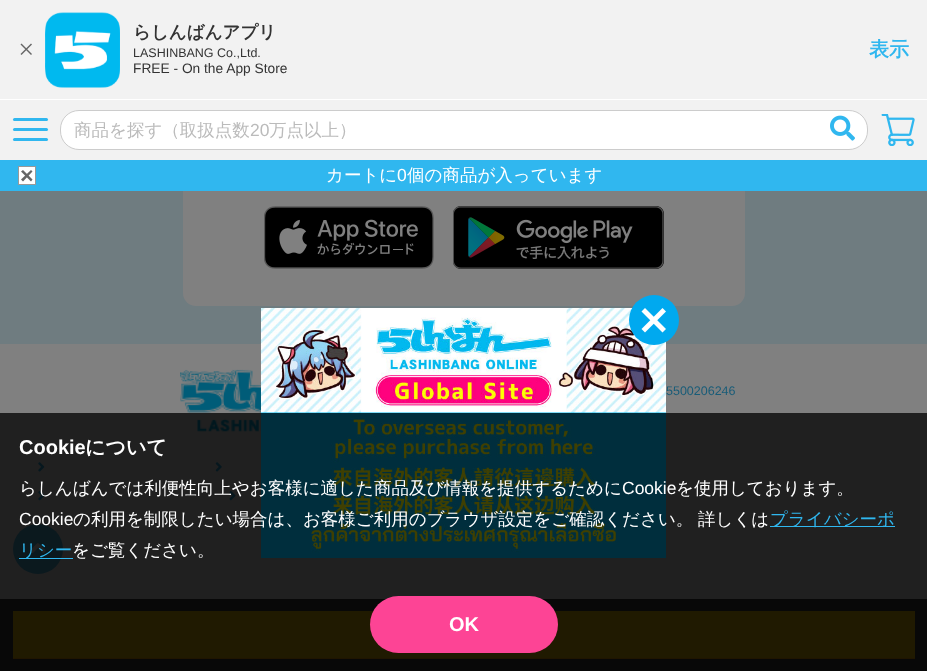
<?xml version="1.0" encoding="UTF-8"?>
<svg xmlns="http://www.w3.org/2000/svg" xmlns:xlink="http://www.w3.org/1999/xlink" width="927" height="671">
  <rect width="100%" height="100%" fill="#808080" />
  <rect y="191" width="927" height="153" fill="#6f7c80" />
  <rect x="183" y="-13" width="562" height="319" rx="13" fill="#808080" />
  <rect width="927" height="99" fill="#f2f2f2" />
  <rect y="99" width="927" height="1" fill="#ffffff" />
  <path d="M 21.5 43.5 l 10.5 10.5 l -1 1 l -10.5 -10.5 z" fill="#666666" />
  <path d="M 20.5 54 l 10.5 -10.5 l 1 1 l -10.5 10.5 z" fill="#666666" />
  <image x="45" y="12" width="75" height="76" xlink:href="image1.png" />
  <rect y="100" width="927" height="60" fill="#f2f2f2" />
  <rect x="13" y="118" width="35" height="3" rx="1.5" fill="#30b7ef" />
  <rect x="13" y="128" width="35" height="3" rx="1.5" fill="#30b7ef" />
  <rect x="13" y="138" width="35" height="3" rx="1.5" fill="#30b7ef" />
  <image x="881" y="114" width="34" height="32" xlink:href="image2.png" />
  <rect x="60.5" y="110.5" width="807" height="39" rx="18.5" fill="#ffffff" stroke="#cccccc" />
  <image x="830" y="115" width="25" height="26" xlink:href="image3.png" />
  <rect y="160" width="927" height="31" fill="#30b7ef" />
  <rect x="18.5" y="166.5" width="17" height="18" fill="#ffffff" stroke="#999999" />
  <path d="M 23 170 l 9.5 9.5 l -1.5 2 l -10 -10 z" fill="#666666" />
  <path d="M 21 179.5 l 10 -9.5 l 1.5 1.5 l -9.5 10 z" fill="#666666" />
  <image x="264" y="206" width="170" height="63" xlink:href="image4.png" />
  <image x="453" y="206" width="211" height="63" xlink:href="image5.png" />
  <image x="180" y="369" width="81" height="63" xlink:href="image6.png" />
  <image x="38" y="462" width="7" height="10" xlink:href="image7.png" />
  <image x="215" y="462" width="7" height="10" xlink:href="image8.png" />
  <image x="38" y="491" width="7" height="10" xlink:href="image9.png" />
  <image x="229" y="491" width="7" height="10" xlink:href="image10.png" />
  <circle cx="38" cy="549" r="25" fill="#2d6379" />
  <image x="30" y="543" width="16" height="11" xlink:href="image11.png" />
  <rect y="599" width="927" height="72" fill="#202020" />
  <rect x="13" y="611" width="902" height="47" fill="#806a05" />
  <rect x="13" y="658" width="902" height="1" fill="#805605" />
  <image x="261" y="308" width="405" height="250" xlink:href="image12.png" />
  <circle cx="654" cy="320" r="25" fill="#00a9ef" />
  <path d="M 645 308 l 21 21 l -3.5 3.5 l -21 -21 z" fill="#ffffff" />
  <path d="M 641.5 329 l 21 -21 l 3.5 3.5 l -21 21 z" fill="#ffffff" />
  <rect y="413" width="927" height="258" fill="#000000" fill-opacity="0.75" />
  <rect x="770" y="526" width="125" height="1" fill="#30b7ef" />
  <rect x="19" y="558" width="54" height="1" fill="#30b7ef" />
  <rect x="370" y="596" width="188" height="57" rx="28.5" fill="#fd4495" />
  <text x="133" y="38" style="font-family: WenQuanYi Zen Hei; font-size: 17.5px; font-weight: bold; fill: #333333">らしんばんアプリ</text>
  <text x="133" y="57" style="font-family: Liberation Sans; font-size: 12.5px; fill: #333333">LASHINBANG Co.,Ltd.</text>
  <text x="133" y="73" style="font-family: Liberation Sans; font-size: 13.75px; fill: #333333">FREE - On the App Store</text>
  <text x="869" y="56" style="font-family: WenQuanYi Zen Hei; font-size: 20px; font-weight: bold; fill: #30b7ef">表示</text>
  <text x="74" y="136" style="font-family: WenQuanYi Zen Hei; font-size: 17.5px; font-weight: 500; fill: #bbbbbb">商品を探す（取扱点数</text>
  <text x="250" y="136" style="font-family: Liberation Sans; font-size: 17.5px; fill: #bbbbbb">20</text>
  <text x="269" y="136" style="font-family: WenQuanYi Zen Hei; font-size: 17.5px; font-weight: 500; fill: #bbbbbb">万点以上）</text>
  <text x="326" y="181" style="font-family: WenQuanYi Zen Hei; font-size: 17.5px; font-weight: 500; fill: #ffffff">カートに</text>
  <text x="397" y="181" style="font-family: Liberation Sans; font-size: 17.5px; fill: #ffffff">0</text>
  <text x="407" y="181" style="font-family: WenQuanYi Zen Hei; font-size: 17.5px; font-weight: 500; fill: #ffffff">個の商品が入っています</text>
  <text x="666" y="395" style="font-family: Liberation Sans; font-size: 12.5px; fill: #185c78">5500206246</text>
  <text x="19" y="454" style="font-family: Liberation Sans; font-size: 20px; font-weight: bold; fill: #ffffff">Cookie</text>
  <text x="85" y="454" style="font-family: WenQuanYi Zen Hei; font-size: 20px; font-weight: bold; fill: #ffffff">について</text>
  <text x="19" y="494" style="font-family: WenQuanYi Zen Hei; font-size: 17.5px; font-weight: 500; fill: #ffffff">らしんばんでは利便性向上やお客様に適した商品及び情報を提供するために</text>
  <text x="622" y="494" style="font-family: Liberation Sans; font-size: 17.5px; fill: #ffffff">Cookie</text>
  <text x="676" y="494" style="font-family: WenQuanYi Zen Hei; font-size: 17.5px; font-weight: 500; fill: #ffffff">を使用しております。</text>
  <text x="19" y="525" style="font-family: Liberation Sans; font-size: 17.5px; fill: #ffffff">Cookie</text>
  <text x="73" y="525" style="font-family: WenQuanYi Zen Hei; font-size: 17.5px; font-weight: 500; fill: #ffffff">の利用を制限したい場合は、お客様ご利用のブラウザ設定をご確認ください。</text>
  <text x="698" y="525" style="font-family: WenQuanYi Zen Hei; font-size: 17.5px; font-weight: 500; fill: #ffffff">詳しくは</text>
  <text x="770" y="525" style="font-family: WenQuanYi Zen Hei; font-size: 17.5px; font-weight: 500; fill: #30b7ef">プライバシーポ</text>
  <text x="19" y="556" style="font-family: WenQuanYi Zen Hei; font-size: 17.5px; font-weight: 500; fill: #30b7ef">リシー</text>
  <text x="72" y="556" style="font-family: WenQuanYi Zen Hei; font-size: 17.5px; font-weight: 500; fill: #ffffff">をご覧ください。</text>
  <text x="449" y="631" style="font-family: Liberation Sans; font-size: 20px; font-weight: bold; fill: #ffffff">OK</text>
</svg>
